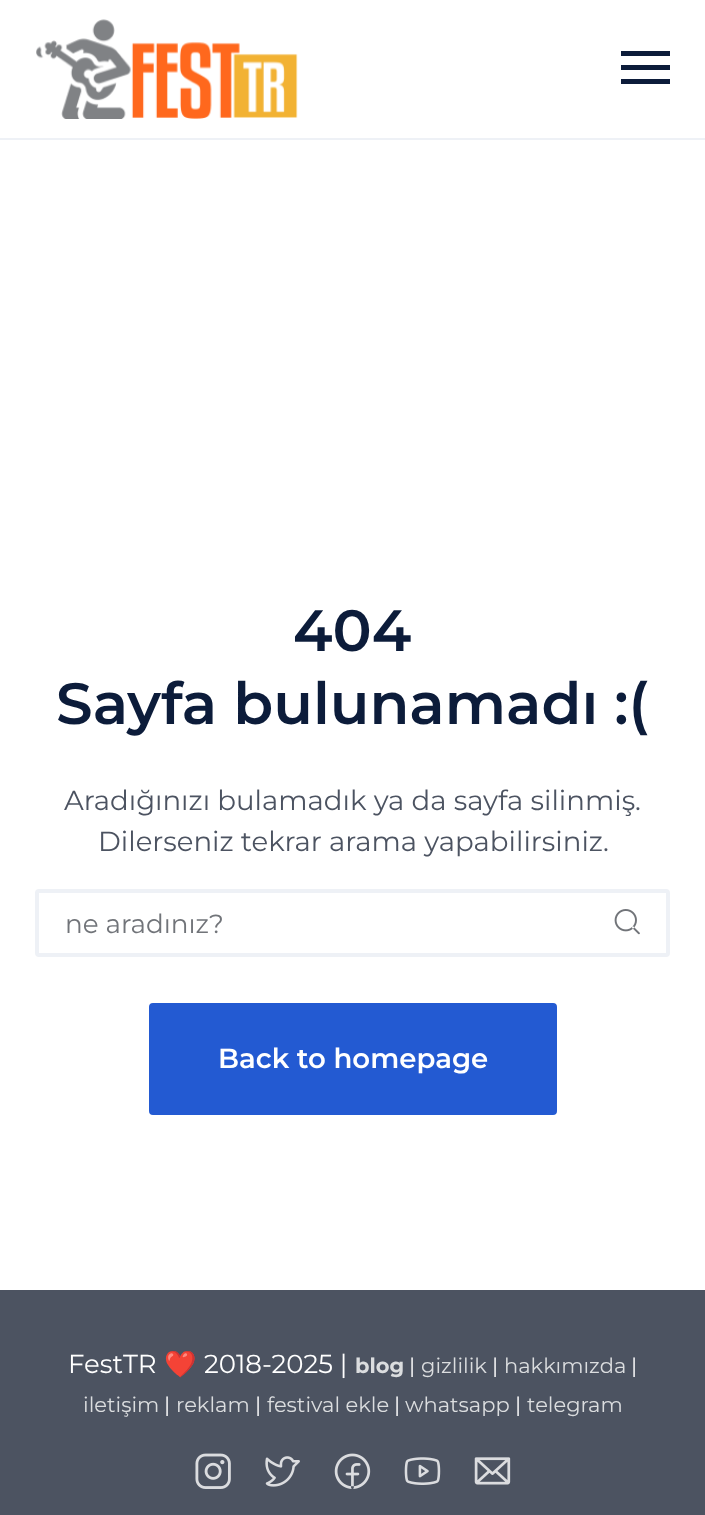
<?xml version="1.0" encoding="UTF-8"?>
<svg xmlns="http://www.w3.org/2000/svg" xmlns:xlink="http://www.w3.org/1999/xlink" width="705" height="1515">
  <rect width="100%" height="100%" fill="#ffffff" />
  <rect y="138" width="705" height="2" fill="#eef1f6" />
  <image x="36" y="19" width="262" height="100" xlink:href="image1.png" />
  <rect x="621" y="65" width="49" height="5" fill="#0c1c3a" />
  <rect x="621" y="51" width="49" height="5" fill="#0c1c3a" />
  <rect x="621" y="79" width="49" height="5" fill="#0c1c3a" />
  <rect x="37" y="891" width="631" height="64" rx="2" fill="none" stroke="#eef1f6" stroke-width="4" />
  <image x="614" y="909" width="26" height="26" xlink:href="image2.png" />
  <rect x="151" y="1005" width="404" height="108" rx="2" fill="#235ad2" stroke="#235ad2" stroke-width="4" />
  <rect y="1290" width="705" height="225" fill="#4c5361" />
  <image x="195" y="1453" width="36" height="36" xlink:href="image3.png" />
  <image x="265" y="1456" width="35" height="31" xlink:href="image4.png" />
  <image x="334" y="1453" width="37" height="36" xlink:href="image5.png" />
  <image x="404" y="1457" width="37" height="28" xlink:href="image6.png" />
  <image x="474" y="1457" width="37" height="28" xlink:href="image7.png" />
  <text x="293" y="651" style="font-family: Montserrat; font-size: 58.25px; font-weight: 600; fill: #0c1c3a">404</text>
  <text x="56" y="724" style="font-family: Montserrat; font-size: 58.25px; font-weight: 600; fill: #0c1c3a">Sayfa bulunamadı :(</text>
  <text x="64" y="810" style="font-family: Montserrat; font-size: 27.6px; fill: #4c5361">Aradığınızı bulamadık ya da sayfa silinmiş.</text>
  <text x="98" y="851" style="font-family: Montserrat; font-size: 27.6px; fill: #4c5361">Dilerseniz tekrar arama yapabilirsiniz.</text>
  <text x="65" y="933" style="font-family: Montserrat; font-size: 26.25px; fill: #717479">ne aradınız?</text>
  <text x="218" y="1068" style="font-family: Montserrat; font-size: 27.6px; font-weight: 600; fill: #ffffff">Back to homepage</text>
  <text x="68" y="1373" style="font-family: Montserrat; font-size: 26px; fill: #ffffff">FestTR</text>
  <text x="164" y="1373" style="font-family: Noto Color Emoji; font-size: 26px; fill: #ffffff">❤</text>
  <text x="204" y="1373" style="font-family: Montserrat; font-size: 26px; fill: #ffffff">2018-2025 |</text>
  <text x="355" y="1373" style="font-family: Montserrat; font-size: 21px; font-weight: bold; fill: #dbdddf">blog</text>
  <text x="409" y="1373" style="font-family: Montserrat; font-size: 21px; fill: #ffffff">|</text>
  <text x="421" y="1373" style="font-family: Montserrat; font-size: 21px; fill: #dbdddf">gizlilik</text>
  <text x="492" y="1373" style="font-family: Montserrat; font-size: 21px; fill: #ffffff">|</text>
  <text x="504" y="1373" style="font-family: Montserrat; font-size: 21px; fill: #dbdddf">hakkımızda</text>
  <text x="631" y="1373" style="font-family: Montserrat; font-size: 21px; fill: #ffffff">|</text>
  <text x="83" y="1412" style="font-family: Montserrat; font-size: 21px; fill: #dbdddf">iletişim</text>
  <text x="164" y="1412" style="font-family: Montserrat; font-size: 21px; fill: #ffffff">|</text>
  <text x="176" y="1412" style="font-family: Montserrat; font-size: 21px; fill: #dbdddf">reklam</text>
  <text x="255" y="1412" style="font-family: Montserrat; font-size: 21px; fill: #ffffff">|</text>
  <text x="267" y="1412" style="font-family: Montserrat; font-size: 21px; fill: #dbdddf">festival ekle</text>
  <text x="394" y="1412" style="font-family: Montserrat; font-size: 21px; fill: #ffffff">|</text>
  <text x="405" y="1412" style="font-family: Montserrat; font-size: 21px; fill: #dbdddf">whatsapp</text>
  <text x="515" y="1412" style="font-family: Montserrat; font-size: 21px; fill: #ffffff">|</text>
  <text x="527" y="1412" style="font-family: Montserrat; font-size: 21px; fill: #dbdddf">telegram</text>
</svg>
